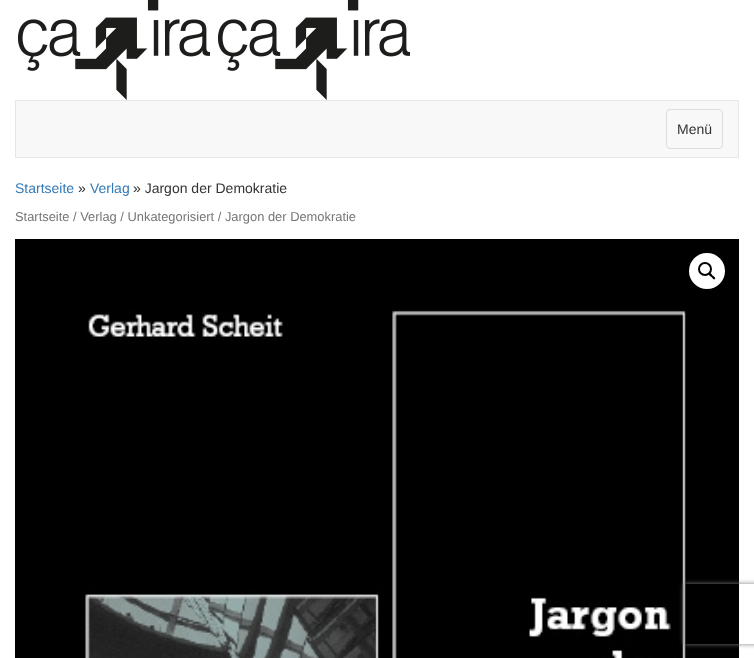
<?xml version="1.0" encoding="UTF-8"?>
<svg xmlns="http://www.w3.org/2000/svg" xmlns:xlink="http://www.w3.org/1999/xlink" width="754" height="658">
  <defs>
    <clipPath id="clip1"><path d="M 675 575 h 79 v 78 h -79 z m 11 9 h 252 c 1 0 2 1 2 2 v 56 c 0 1 -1 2 -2 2 h -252 c -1 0 -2 -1 -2 -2 v -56 c 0 -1 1 -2 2 -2 z" clip-rule="evenodd" /></clipPath>
  </defs>
  <rect width="100%" height="100%" fill="#ffffff" />
  <image x="18" y="0" width="192" height="100" xlink:href="image1.png" />
  <image x="218" y="0" width="192" height="100" xlink:href="image1.png" />
  <rect x="15.5" y="100.5" width="723" height="57" fill="#f8f8f8" stroke="#e7e7e7" />
  <rect x="666.5" y="109.5" width="56" height="39" rx="3.5" fill="none" stroke="#dddddd" />
  <image x="15" y="239" width="724" height="419" xlink:href="image2.png" />
  <circle cx="707" cy="271" r="18" fill="#ffffff" />
  <circle cx="705" cy="269" r="6" fill="none" stroke="#000000" stroke-width="2" />
  <path d="M 709 273.5 c 1.5 -1.5 3 1.5 3.5 2 c 1 0.5 3.5 2.5 2.5 3.5 c -1.5 1.5 -3 -1.5 -3.5 -2 c -1 -0.5 -3.5 -2.5 -2.5 -3.5 z" fill="#000000" />
  <g clip-path="url(#clip1)">
    <rect x="684" y="584" width="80" height="60" rx="2" fill="#808080" filter="blur(2.5px)" />
  </g>
  <text x="677" y="134" style="font-family: Liberation Sans; font-size: 14px; fill: #333333">Menü</text>
  <text x="15" y="193" style="font-family: Liberation Sans; font-size: 14px; fill: #337ab7">Startseite</text>
  <text x="78" y="193" style="font-family: Liberation Sans; font-size: 14px; fill: #333333">»</text>
  <text x="90" y="193" style="font-family: Liberation Sans; font-size: 14px; fill: #337ab7">Verlag</text>
  <text x="133" y="193" style="font-family: Liberation Sans; font-size: 14px; fill: #333333">» Jargon der Demokratie</text>
  <text x="15" y="221" style="font-family: Liberation Sans; font-size: 12.9px; fill: #767676">Startseite / Verlag / Unkategorisiert / Jargon der Demokratie</text>
</svg>
